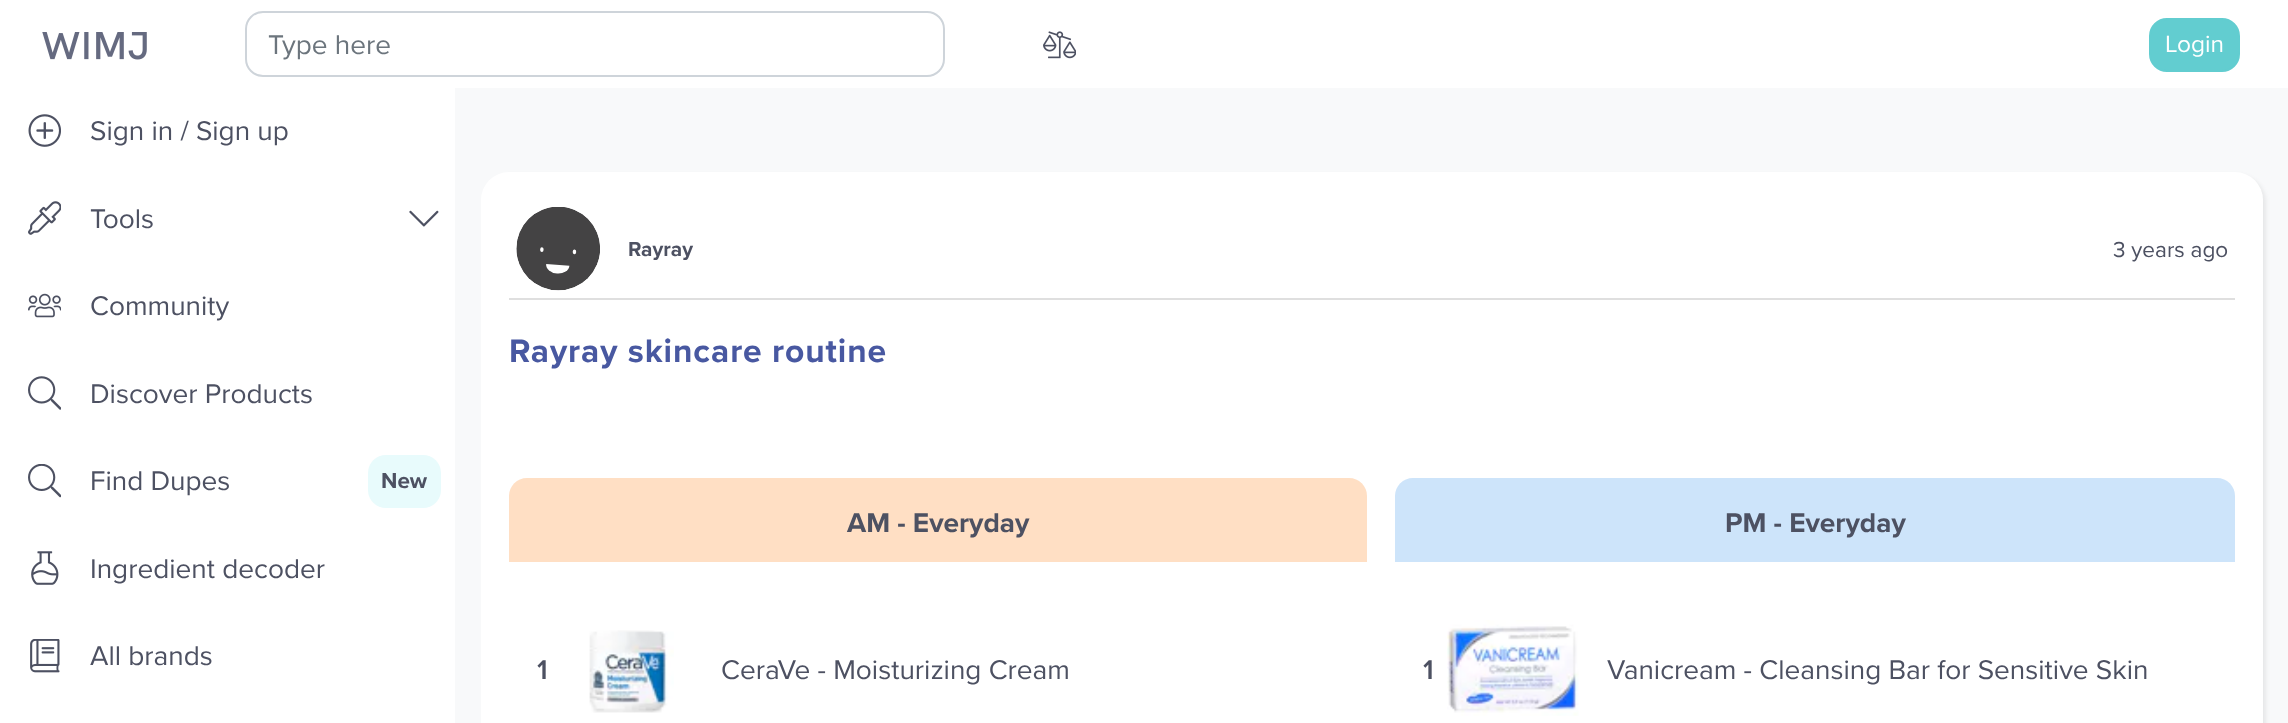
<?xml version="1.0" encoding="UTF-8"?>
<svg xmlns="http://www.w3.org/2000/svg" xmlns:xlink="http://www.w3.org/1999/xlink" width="2288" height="723">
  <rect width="100%" height="100%" fill="#ffffff" />
  <image x="42" y="32" width="105" height="28" xlink:href="image1.png" />
  <rect x="246" y="12" width="698" height="64" rx="17" fill="none" stroke="#ced4da" stroke-width="2" />
  <image x="1043" y="31" width="33" height="28" xlink:href="image2.png" />
  <rect x="2150" y="19" width="89" height="52" rx="17" fill="#62cdd0" stroke="#62cdd0" stroke-width="2" />
  <image x="28" y="114" width="33" height="33" xlink:href="image3.png" />
  <image x="28" y="201" width="33" height="34" xlink:href="image4.png" />
  <image x="409" y="210" width="30" height="17" xlink:href="image5.png" />
  <image x="28" y="293" width="33" height="25" xlink:href="image6.png" />
  <image x="28" y="376" width="33" height="34" xlink:href="image7.png" />
  <image x="28" y="464" width="33" height="34" xlink:href="image8.png" />
  <rect x="368" y="455" width="73" height="53" rx="18" fill="#e8fbfc" />
  <image x="31" y="551" width="28" height="34" xlink:href="image9.png" />
  <image x="30" y="639" width="30" height="34" xlink:href="image10.png" />
  <rect x="455" y="88" width="1833" height="635" fill="#f8f9fa" />
  <rect x="485" y="175" width="1781" height="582" rx="28" fill="#000000" fill-opacity="0.07" filter="blur(2px)" />
  <rect x="481" y="172" width="1782" height="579" rx="28" fill="#ffffff" />
  <rect x="509" y="298" width="1726" height="2" fill="#dfdfdf" />
  <image x="516" y="207" width="84" height="84" xlink:href="image11.png" />
  <path d="M 527 478 h 822 c 10 0 18 8 18 18 v 66 h -858 v -66 c 0 -10 8 -18 18 -18 z" fill="#ffdfc4" />
  <image x="589" y="630" width="85" height="83" xlink:href="image12.png" />
  <path d="M 1413 478 h 804 c 10 0 18 8 18 18 v 66 h -840 v -66 c 0 -10 8 -18 18 -18 z" fill="#cde4fa" />
  <image x="1447" y="620" width="132" height="96" xlink:href="image13.png" />
  <text x="268" y="54" style="font-family: Proxima Nova; font-size: 28px; fill: #6c757d">Type here</text>
  <text x="2165" y="52" style="font-family: Proxima Nova; font-size: 24.5px; fill: #ffffff">Login</text>
  <text x="90" y="140" style="font-family: Proxima Nova; font-size: 28px; fill: #4d5162">Sign in / Sign up</text>
  <text x="90" y="228" style="font-family: Proxima Nova; font-size: 28px; fill: #4d5162">Tools</text>
  <text x="90" y="315" style="font-family: Proxima Nova; font-size: 28px; fill: #4d5162">Community</text>
  <text x="90" y="403" style="font-family: Proxima Nova; font-size: 28px; fill: #4d5162">Discover Products</text>
  <text x="90" y="490" style="font-family: Proxima Nova; font-size: 28px; fill: #4d5162">Find Dupes</text>
  <text x="381" y="488" style="font-family: Proxima Nova; font-size: 22.5px; font-weight: bold; fill: #4d5162">New</text>
  <text x="90" y="578" style="font-family: Proxima Nova; font-size: 28px; fill: #4d5162">Ingredient decoder</text>
  <text x="90" y="665" style="font-family: Proxima Nova; font-size: 28px; fill: #4d5162">All brands</text>
  <text x="628" y="256" style="font-family: Proxima Nova; font-size: 21px; font-weight: bold; fill: #4d5162">Rayray</text>
  <text x="2113" y="257" style="font-family: Proxima Nova; font-size: 22.5px; fill: #4d5162">3 years ago</text>
  <text x="509" y="362" style="font-family: Proxima Nova; font-size: 33.6px; font-weight: bold; letter-spacing: 0.9px; fill: #4858a1">Rayray skincare routine</text>
  <text x="847" y="532" style="font-family: Proxima Nova; font-size: 28px; font-weight: bold; fill: #4d5162">AM - Everyday</text>
  <text x="537" y="679" style="font-family: Proxima Nova; font-size: 28px; font-weight: 600; fill: #4d5162">1</text>
  <text x="721" y="679" style="font-family: Proxima Nova; font-size: 28px; fill: #4d5162">CeraVe - Moisturizing Cream</text>
  <text x="1725" y="532" style="font-family: Proxima Nova; font-size: 28px; font-weight: bold; fill: #4d5162">PM - Everyday</text>
  <text x="1423" y="679" style="font-family: Proxima Nova; font-size: 28px; font-weight: 600; fill: #4d5162">1</text>
  <text x="1607" y="679" style="font-family: Proxima Nova; font-size: 28px; fill: #4d5162">Vanicream - Cleansing Bar for Sensitive Skin</text>
</svg>
